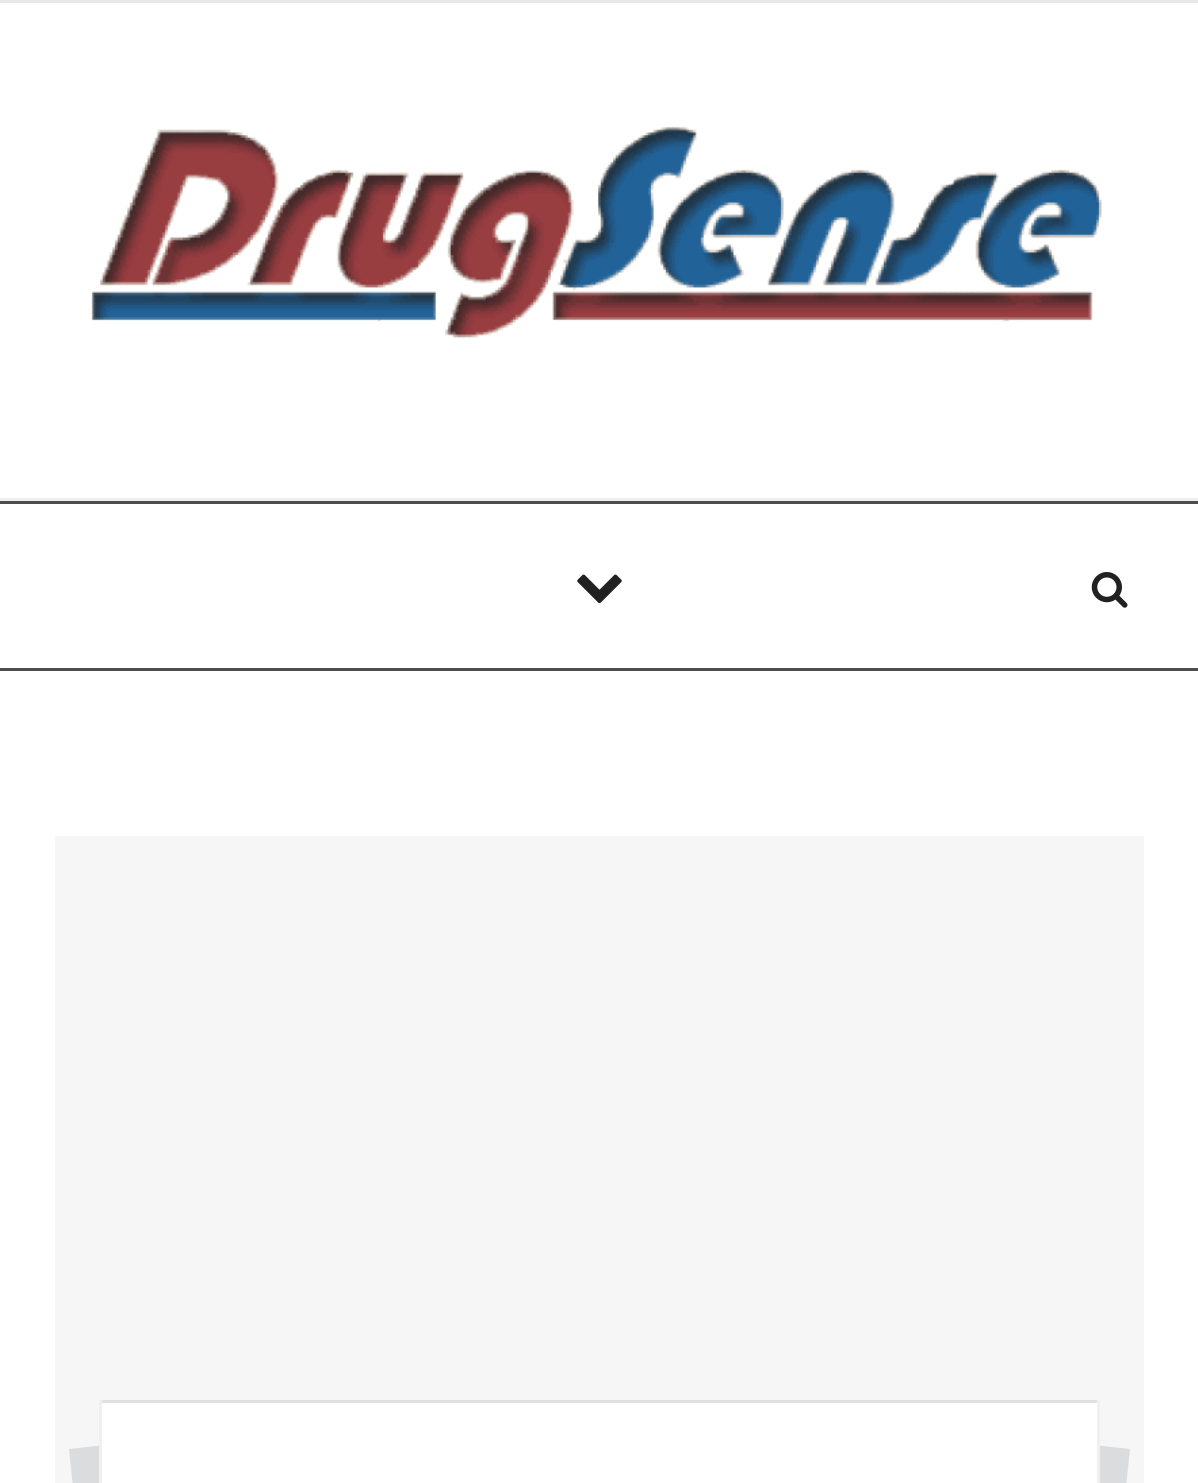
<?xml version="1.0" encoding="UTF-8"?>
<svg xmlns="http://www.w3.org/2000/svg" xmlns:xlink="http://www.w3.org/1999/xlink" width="1198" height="1483">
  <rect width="100%" height="100%" fill="#ffffff" />
  <rect width="1198" height="3" fill="#e8e8e8" />
  <rect y="498" width="1198" height="3" fill="#eeeeee" />
  <image x="91" y="126" width="1011" height="213" xlink:href="image1.png" />
  <rect y="501" width="1198" height="3" fill="#4e4e4e" />
  <rect y="668" width="1198" height="3" fill="#4e4e4e" />
  <image x="577" y="574" width="45" height="30" xlink:href="image2.png" />
  <image x="1091" y="572" width="37" height="36" xlink:href="image3.png" />
  <rect x="55" y="836" width="1089" height="647" fill="#f6f6f6" />
  <path d="M 69 1449 l 55 -6 l 43 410 l -55 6 z" fill="#dbdcdd" />
  <path d="M 1075 1443 l 55 6 l -43 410 l -55 -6 z" fill="#dbdcdd" />
  <rect x="102" y="1403" width="995" height="80" fill="#ffffff" />
  <rect x="99" y="1400" width="1001" height="3" fill="#e1e1e1" />
  <rect x="1097" y="1400" width="3" height="83" fill="#f0f0f0" />
  <rect x="99" y="1400" width="3" height="83" fill="#f0f0f0" />
</svg>
